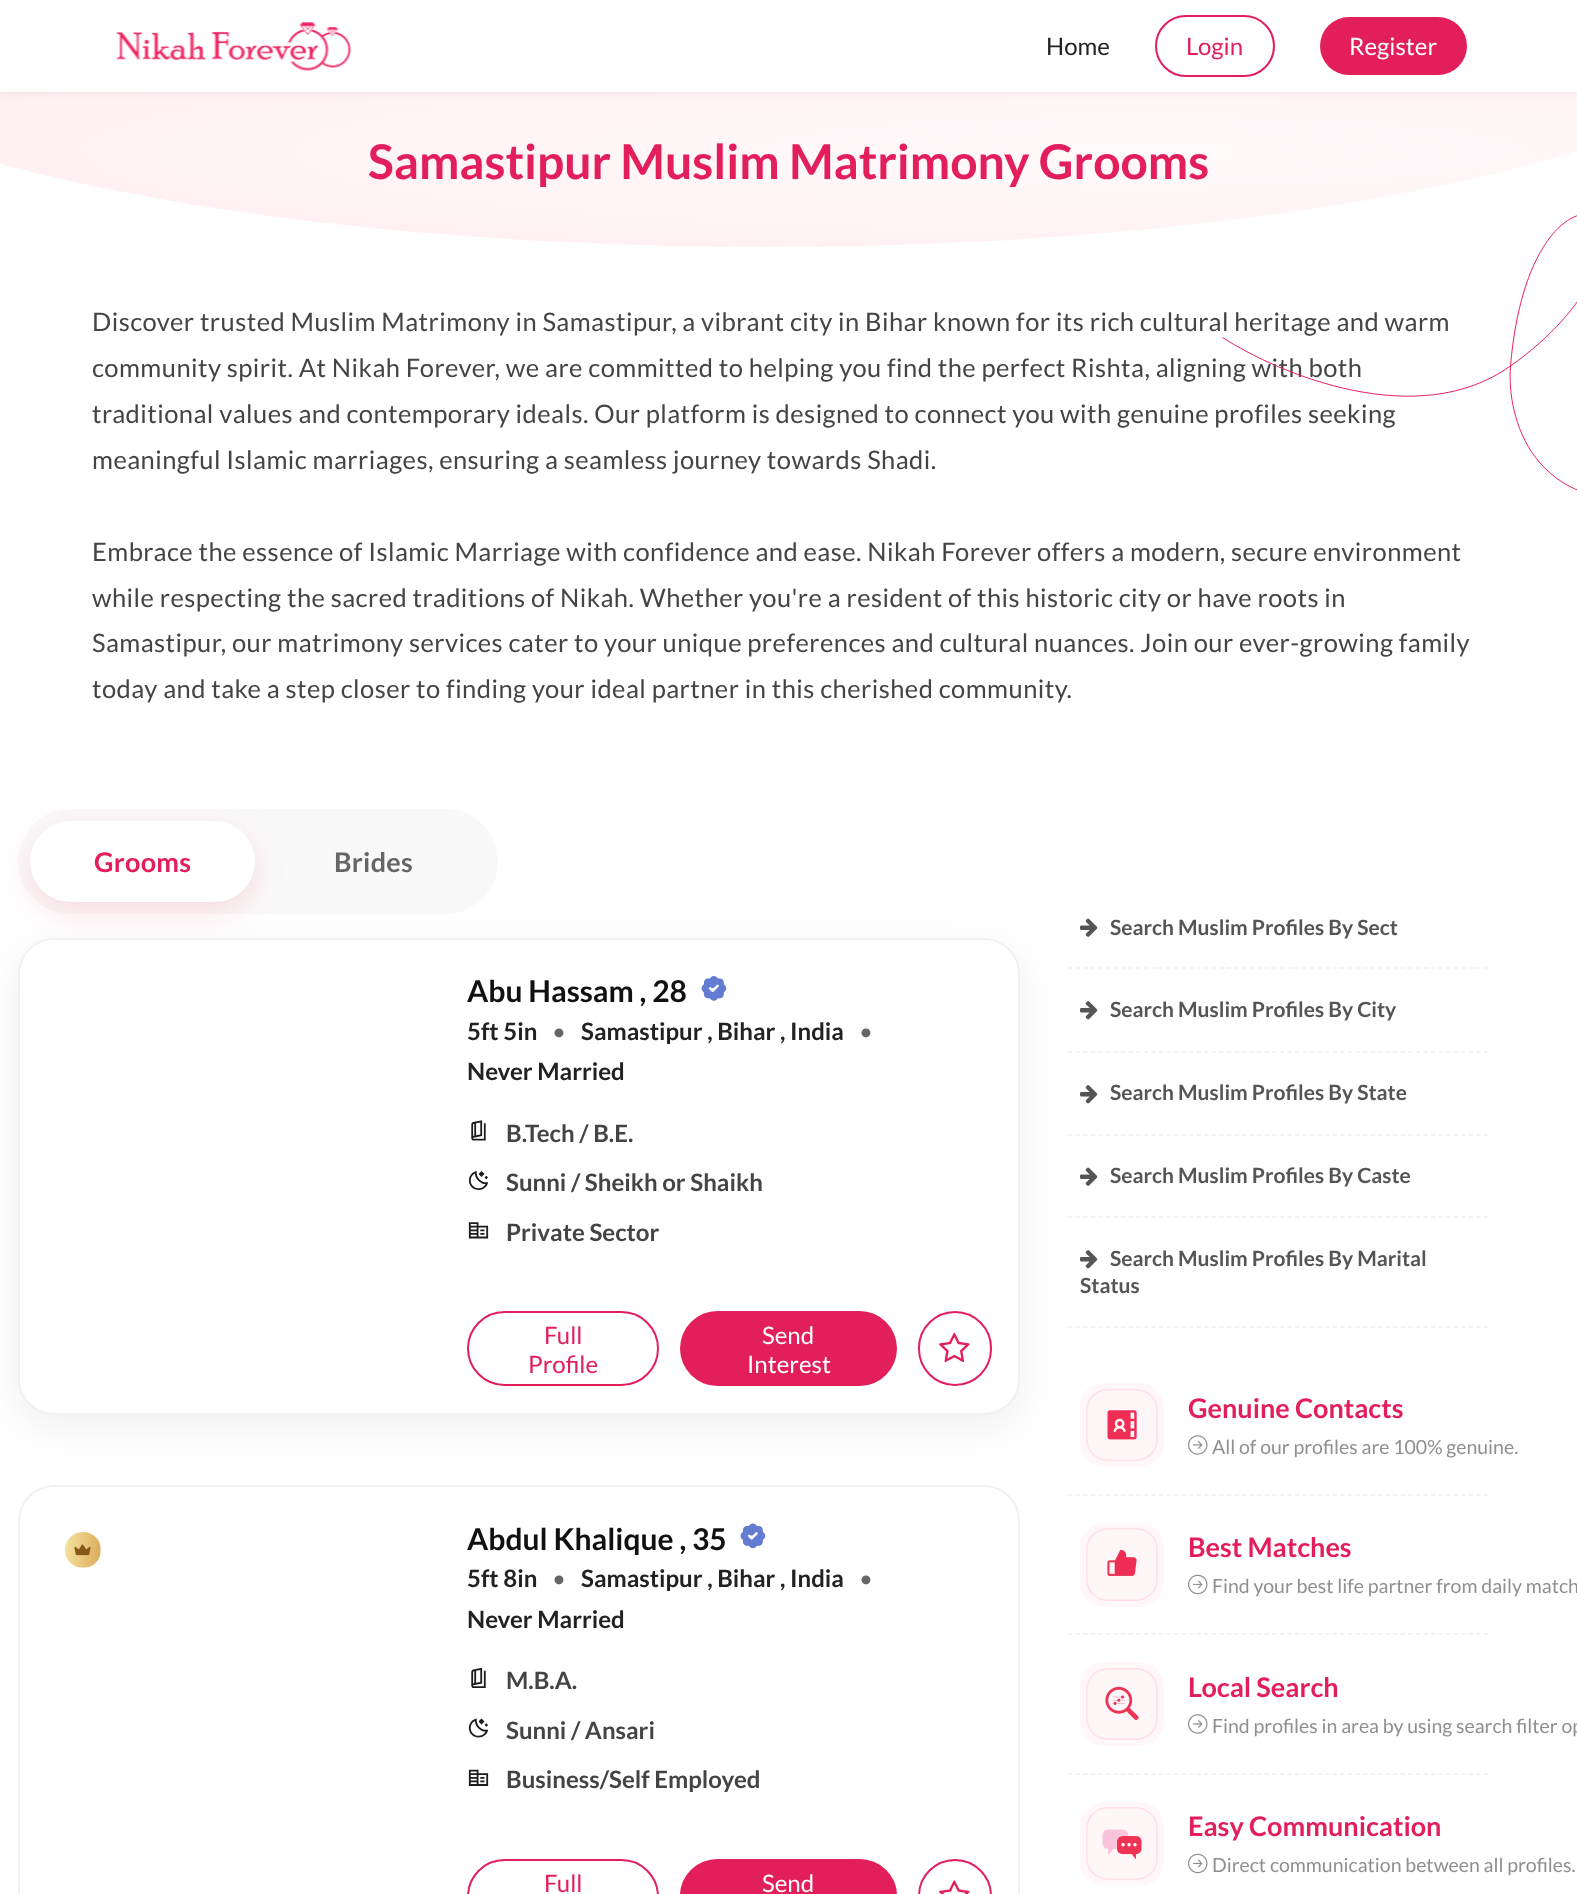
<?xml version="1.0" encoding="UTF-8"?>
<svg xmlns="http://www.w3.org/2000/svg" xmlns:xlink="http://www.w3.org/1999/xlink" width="1577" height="1894">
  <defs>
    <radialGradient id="g1" gradientUnits="userSpaceOnUse" cx="0" cy="0" r="1" gradientTransform="matrix(1586 0 0 149 1142 152)"><stop offset="0" stop-color="#fffafb" /><stop offset="1" stop-color="#ffedf0" /></radialGradient>
  </defs>
  <rect width="100%" height="100%" fill="#ffffff" />
  <rect x="18" y="809" width="480" height="105" rx="52.5" fill="#f9f9f9" />
  <rect x="18" y="950" width="1002" height="477" rx="36" fill="#000000" fill-opacity="0.06" filter="blur(18px)" />
  <rect x="19" y="939" width="1000" height="475" rx="35" fill="#ffffff" stroke="#f1f1f3" stroke-width="2" />
  <rect x="30" y="831" width="225" height="81" rx="40.5" fill="#ee2e55" fill-opacity="0.14" filter="blur(15.5px)" />
  <rect x="30" y="821" width="225" height="81" rx="40.5" fill="#ffffff" />
  <image x="701" y="976" width="26" height="25" xlink:href="image2.png" />
  <image x="471" y="1120" width="15" height="21" xlink:href="image3.png" />
  <image x="468" y="1171" width="20" height="19" xlink:href="image4.png" />
  <image x="468" y="1222" width="21" height="17" xlink:href="image5.png" />
  <rect x="468" y="1312" width="190" height="73" rx="36.5" fill="none" stroke="#e21e5b" stroke-width="2" />
  <rect x="680" y="1311" width="217" height="75" rx="37.5" fill="#e21e5b" />
  <rect x="919" y="1312" width="72" height="73" rx="36" fill="none" stroke="#e21e5b" stroke-width="2" />
  <image x="939" y="1332" width="31" height="30" xlink:href="image6.png" />
  <rect x="19" y="1486" width="1000" height="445" rx="35" fill="none" stroke="#f1f1f3" stroke-width="2" />
  <image x="65" y="1532" width="36" height="36" xlink:href="image7.png" />
  <image x="740" y="1523" width="26" height="26" xlink:href="image8.png" />
  <image x="471" y="1667" width="15" height="21" xlink:href="image9.png" />
  <image x="468" y="1718" width="20" height="20" xlink:href="image10.png" />
  <image x="468" y="1769" width="21" height="17" xlink:href="image11.png" />
  <rect x="468" y="1860" width="190" height="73" rx="36.5" fill="none" stroke="#e21e5b" stroke-width="2" />
  <rect x="680" y="1859" width="217" height="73" rx="37.5" fill="#e21e5b" />
  <circle cx="955" cy="1896" r="36" fill="none" stroke="#e21e5b" stroke-width="2" />
  <image x="939" y="1880" width="31" height="14" xlink:href="image12.png" />
  <path d="M 1068 968 h 420" fill="none" stroke="#eeeeee" stroke-width="1.5" stroke-dasharray="4.5 3.06" />
  <image x="1080" y="918" width="18" height="19" xlink:href="image13.png" />
  <path d="M 1068 1052 h 420" fill="none" stroke="#eeeeee" stroke-width="1.5" stroke-dasharray="4.5 3.06" />
  <image x="1080" y="1001" width="18" height="19" xlink:href="image14.png" />
  <path d="M 1068 1135 h 420" fill="none" stroke="#eeeeee" stroke-width="1.5" stroke-dasharray="4.5 3.06" />
  <image x="1080" y="1085" width="18" height="19" xlink:href="image14.png" />
  <path d="M 1068 1217 h 420" fill="none" stroke="#eeeeee" stroke-width="1.5" stroke-dasharray="4.5 3.06" />
  <image x="1080" y="1167" width="18" height="19" xlink:href="image13.png" />
  <path d="M 1068 1327 h 420" fill="none" stroke="#eeeeee" stroke-width="1.5" stroke-dasharray="4.5 3.06" />
  <image x="1080" y="1250" width="18" height="19" xlink:href="image14.png" />
  <path d="M 1068 1495 h 420" fill="none" stroke="#eeeeee" stroke-width="1.5" stroke-dasharray="4.5 3.06" />
  <rect x="1080" y="1383" width="84" height="84" rx="24" fill="#fff7fa" />
  <image x="1086" y="1389" width="72" height="72" xlink:href="image15.png" />
  <image x="1188" y="1435" width="20" height="20" xlink:href="image16.png" />
  <path d="M 1068 1634 h 420" fill="none" stroke="#eeeeee" stroke-width="1.5" stroke-dasharray="4.5 3.06" />
  <rect x="1080" y="1523" width="84" height="84" rx="24" fill="#fff7fa" />
  <image x="1086" y="1528" width="72" height="73" xlink:href="image17.png" />
  <image x="1188" y="1574" width="20" height="21" xlink:href="image18.png" />
  <path d="M 1068 1774 h 420" fill="none" stroke="#eeeeee" stroke-width="1.5" stroke-dasharray="4.5 3.06" />
  <rect x="1080" y="1662" width="84" height="84" rx="24" fill="#fff7fa" />
  <image x="1086" y="1668" width="72" height="72" xlink:href="image19.png" />
  <image x="1188" y="1714" width="20" height="20" xlink:href="image16.png" />
  <rect x="1080" y="1802" width="84" height="84" rx="24" fill="#fff7fa" />
  <image x="1086" y="1807" width="72" height="73" xlink:href="image20.png" />
  <image x="1188" y="1853" width="20" height="21" xlink:href="image18.png" />
  <text x="92" y="331" style="font-family: Lato; font-size: 25.5px; letter-spacing: 0.45px; fill: #444444">Discover trusted Muslim Matrimony in Samastipur, a vibrant city in Bihar known for its rich cultural heritage and warm</text>
  <text x="92" y="377" style="font-family: Lato; font-size: 25.5px; letter-spacing: 0.45px; fill: #444444">community spirit. At Nikah Forever, we are committed to helping you find the perfect Rishta, aligning with both</text>
  <text x="92" y="423" style="font-family: Lato; font-size: 25.5px; letter-spacing: 0.45px; fill: #444444">traditional values and contemporary ideals. Our platform is designed to connect you with genuine profiles seeking</text>
  <path d="M 1222.5 337.5 c 57.5 37 195.5 94.5 288 28.5 m 0 0 c 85 -60.5 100 -123 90 -144 c -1.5 -3.5 -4.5 -6 -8 -7 c -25.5 -7.5 -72 33 -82 151 z m 0 0 c -4 51 21 149 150 132.5" fill="none" stroke="#ed215d" />
  <ellipse cx="766.5" cy="-7" rx="1036.5" ry="254" fill="url(#g1)" />
  <rect y="2" width="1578" height="91" fill="#000000" fill-opacity="0.06" filter="blur(3px)" />
  <rect width="1577" height="92" fill="#ffffff" />
  <rect x="1320" y="17" width="147" height="58" rx="29" fill="#e21e5b" />
  <text x="1349" y="55" style="font-family: Lato; font-size: 24px; fill: #ffffff">Register</text>
  <rect x="1156" y="16" width="118" height="60" rx="30" fill="none" stroke="#e21e5b" stroke-width="2" />
  <text x="1186" y="55" style="font-family: Lato; font-size: 24px; fill: #e21e5b">Login</text>
  <text x="1046" y="55" style="font-family: Lato; font-size: 24px; fill: #222222">Home</text>
  <image x="116" y="21" width="236" height="50" xlink:href="image1.png" />
  <text x="368" y="179" style="font-family: Lato; font-size: 48px; font-weight: bold; fill: #e21e5b">Samastipur Muslim Matrimony Grooms</text>
  <text x="92" y="469" style="font-family: Lato; font-size: 25.5px; letter-spacing: 0.45px; fill: #444444">meaningful Islamic marriages, ensuring a seamless journey towards Shadi.</text>
  <text x="92" y="561" style="font-family: Lato; font-size: 25.5px; letter-spacing: 0.45px; fill: #444444">Embrace the essence of Islamic Marriage with confidence and ease. Nikah Forever offers a modern, secure environment</text>
  <text x="92" y="607" style="font-family: Lato; font-size: 25.5px; letter-spacing: 0.45px; fill: #444444">while respecting the sacred traditions of Nikah. Whether you're a resident of this historic city or have roots in</text>
  <text x="92" y="652" style="font-family: Lato; font-size: 25.5px; letter-spacing: 0.45px; fill: #444444">Samastipur, our matrimony services cater to your unique preferences and cultural nuances. Join our ever-growing family</text>
  <text x="92" y="698" style="font-family: Lato; font-size: 25.5px; letter-spacing: 0.45px; fill: #444444">today and take a step closer to finding your ideal partner in this cherished community.</text>
  <text x="94" y="872" style="font-family: Lato; font-size: 27px; font-weight: bold; letter-spacing: 0.25px; fill: #e21e5b">Grooms</text>
  <text x="334" y="872" style="font-family: Lato; font-size: 27px; font-weight: bold; letter-spacing: 0.25px; fill: #666666">Brides</text>
  <text x="467" y="1002" style="font-family: Lato; font-size: 30px; font-weight: bold; fill: #111111">Abu Hassam , 28</text>
  <text x="467" y="1040" style="font-family: Lato; font-size: 24px; font-weight: bold; fill: #222222">5ft 5in</text>
  <text x="552" y="1040" style="font-family: Lato; font-size: 24px; fill: #666666">•</text>
  <text x="581" y="1040" style="font-family: Lato; font-size: 24px; font-weight: bold; fill: #222222">Samastipur , Bihar , India</text>
  <text x="859" y="1040" style="font-family: Lato; font-size: 24px; fill: #666666">•</text>
  <text x="467" y="1080" style="font-family: Lato; font-size: 24px; font-weight: bold; fill: #222222">Never Married</text>
  <text x="506" y="1142" style="font-family: Lato; font-size: 24px; font-weight: bold; fill: #444444">B.Tech / B.E.</text>
  <text x="506" y="1191" style="font-family: Lato; font-size: 24px; font-weight: bold; fill: #444444">Sunni / Sheikh or Shaikh</text>
  <text x="506" y="1241" style="font-family: Lato; font-size: 24px; font-weight: bold; fill: #444444">Private Sector</text>
  <text x="544" y="1344" style="font-family: Lato; font-size: 24px; fill: #e21e5b">Full</text>
  <text x="528" y="1373" style="font-family: Lato; font-size: 24px; fill: #e21e5b">Profile</text>
  <text x="762" y="1344" style="font-family: Lato; font-size: 24px; fill: #ffffff">Send</text>
  <text x="747" y="1373" style="font-family: Lato; font-size: 24px; fill: #ffffff">Interest</text>
  <text x="467" y="1550" style="font-family: Lato; font-size: 30px; font-weight: bold; fill: #111111">Abdul Khalique , 35</text>
  <text x="467" y="1587" style="font-family: Lato; font-size: 24px; font-weight: bold; fill: #222222">5ft 8in</text>
  <text x="552" y="1587" style="font-family: Lato; font-size: 24px; fill: #666666">•</text>
  <text x="581" y="1587" style="font-family: Lato; font-size: 24px; font-weight: bold; fill: #222222">Samastipur , Bihar , India</text>
  <text x="859" y="1587" style="font-family: Lato; font-size: 24px; fill: #666666">•</text>
  <text x="467" y="1628" style="font-family: Lato; font-size: 24px; font-weight: bold; fill: #222222">Never Married</text>
  <text x="506" y="1689" style="font-family: Lato; font-size: 24px; font-weight: bold; fill: #444444">M.B.A.</text>
  <text x="506" y="1739" style="font-family: Lato; font-size: 24px; font-weight: bold; fill: #444444">Sunni / Ansari</text>
  <text x="506" y="1788" style="font-family: Lato; font-size: 24px; font-weight: bold; fill: #444444">Business/Self Employed</text>
  <text x="544" y="1892" style="font-family: Lato; font-size: 24px; fill: #e21e5b">Full</text>
  <text x="762" y="1892" style="font-family: Lato; font-size: 24px; fill: #ffffff">Send</text>
  <text x="1110" y="935" style="font-family: Lato; font-size: 21px; font-weight: bold; fill: #555555">Search Muslim Profiles By Sect</text>
  <text x="1110" y="1017" style="font-family: Lato; font-size: 21px; font-weight: bold; fill: #555555">Search Muslim Profiles By City</text>
  <text x="1110" y="1100" style="font-family: Lato; font-size: 21px; font-weight: bold; fill: #555555">Search Muslim Profiles By State</text>
  <text x="1110" y="1183" style="font-family: Lato; font-size: 21px; font-weight: bold; fill: #555555">Search Muslim Profiles By Caste</text>
  <text x="1110" y="1266" style="font-family: Lato; font-size: 21px; font-weight: bold; fill: #555555">Search Muslim Profiles By Marital</text>
  <text x="1080" y="1293" style="font-family: Lato; font-size: 21px; font-weight: bold; fill: #555555">Status</text>
  <text x="1188" y="1418" style="font-family: Lato; font-size: 27px; font-weight: bold; fill: #e21e5b">Genuine Contacts</text>
  <text x="1212" y="1454" style="font-family: Lato; font-size: 19.5px; fill: #8f8f93">All of our profiles are 100% genuine.</text>
  <text x="1188" y="1557" style="font-family: Lato; font-size: 27px; font-weight: bold; fill: #e21e5b">Best Matches</text>
  <text x="1212" y="1593" style="font-family: Lato; font-size: 19.5px; fill: #8f8f93">Find your best life partner from daily match</text>
  <text x="1188" y="1697" style="font-family: Lato; font-size: 27px; font-weight: bold; fill: #e21e5b">Local Search</text>
  <text x="1212" y="1733" style="font-family: Lato; font-size: 19.5px; fill: #8f8f93">Find profiles in area by using search filter op</text>
  <text x="1188" y="1836" style="font-family: Lato; font-size: 27px; font-weight: bold; fill: #e21e5b">Easy Communication</text>
  <text x="1212" y="1872" style="font-family: Lato; font-size: 19.5px; fill: #8f8f93">Direct communication between all profiles.</text>
</svg>
